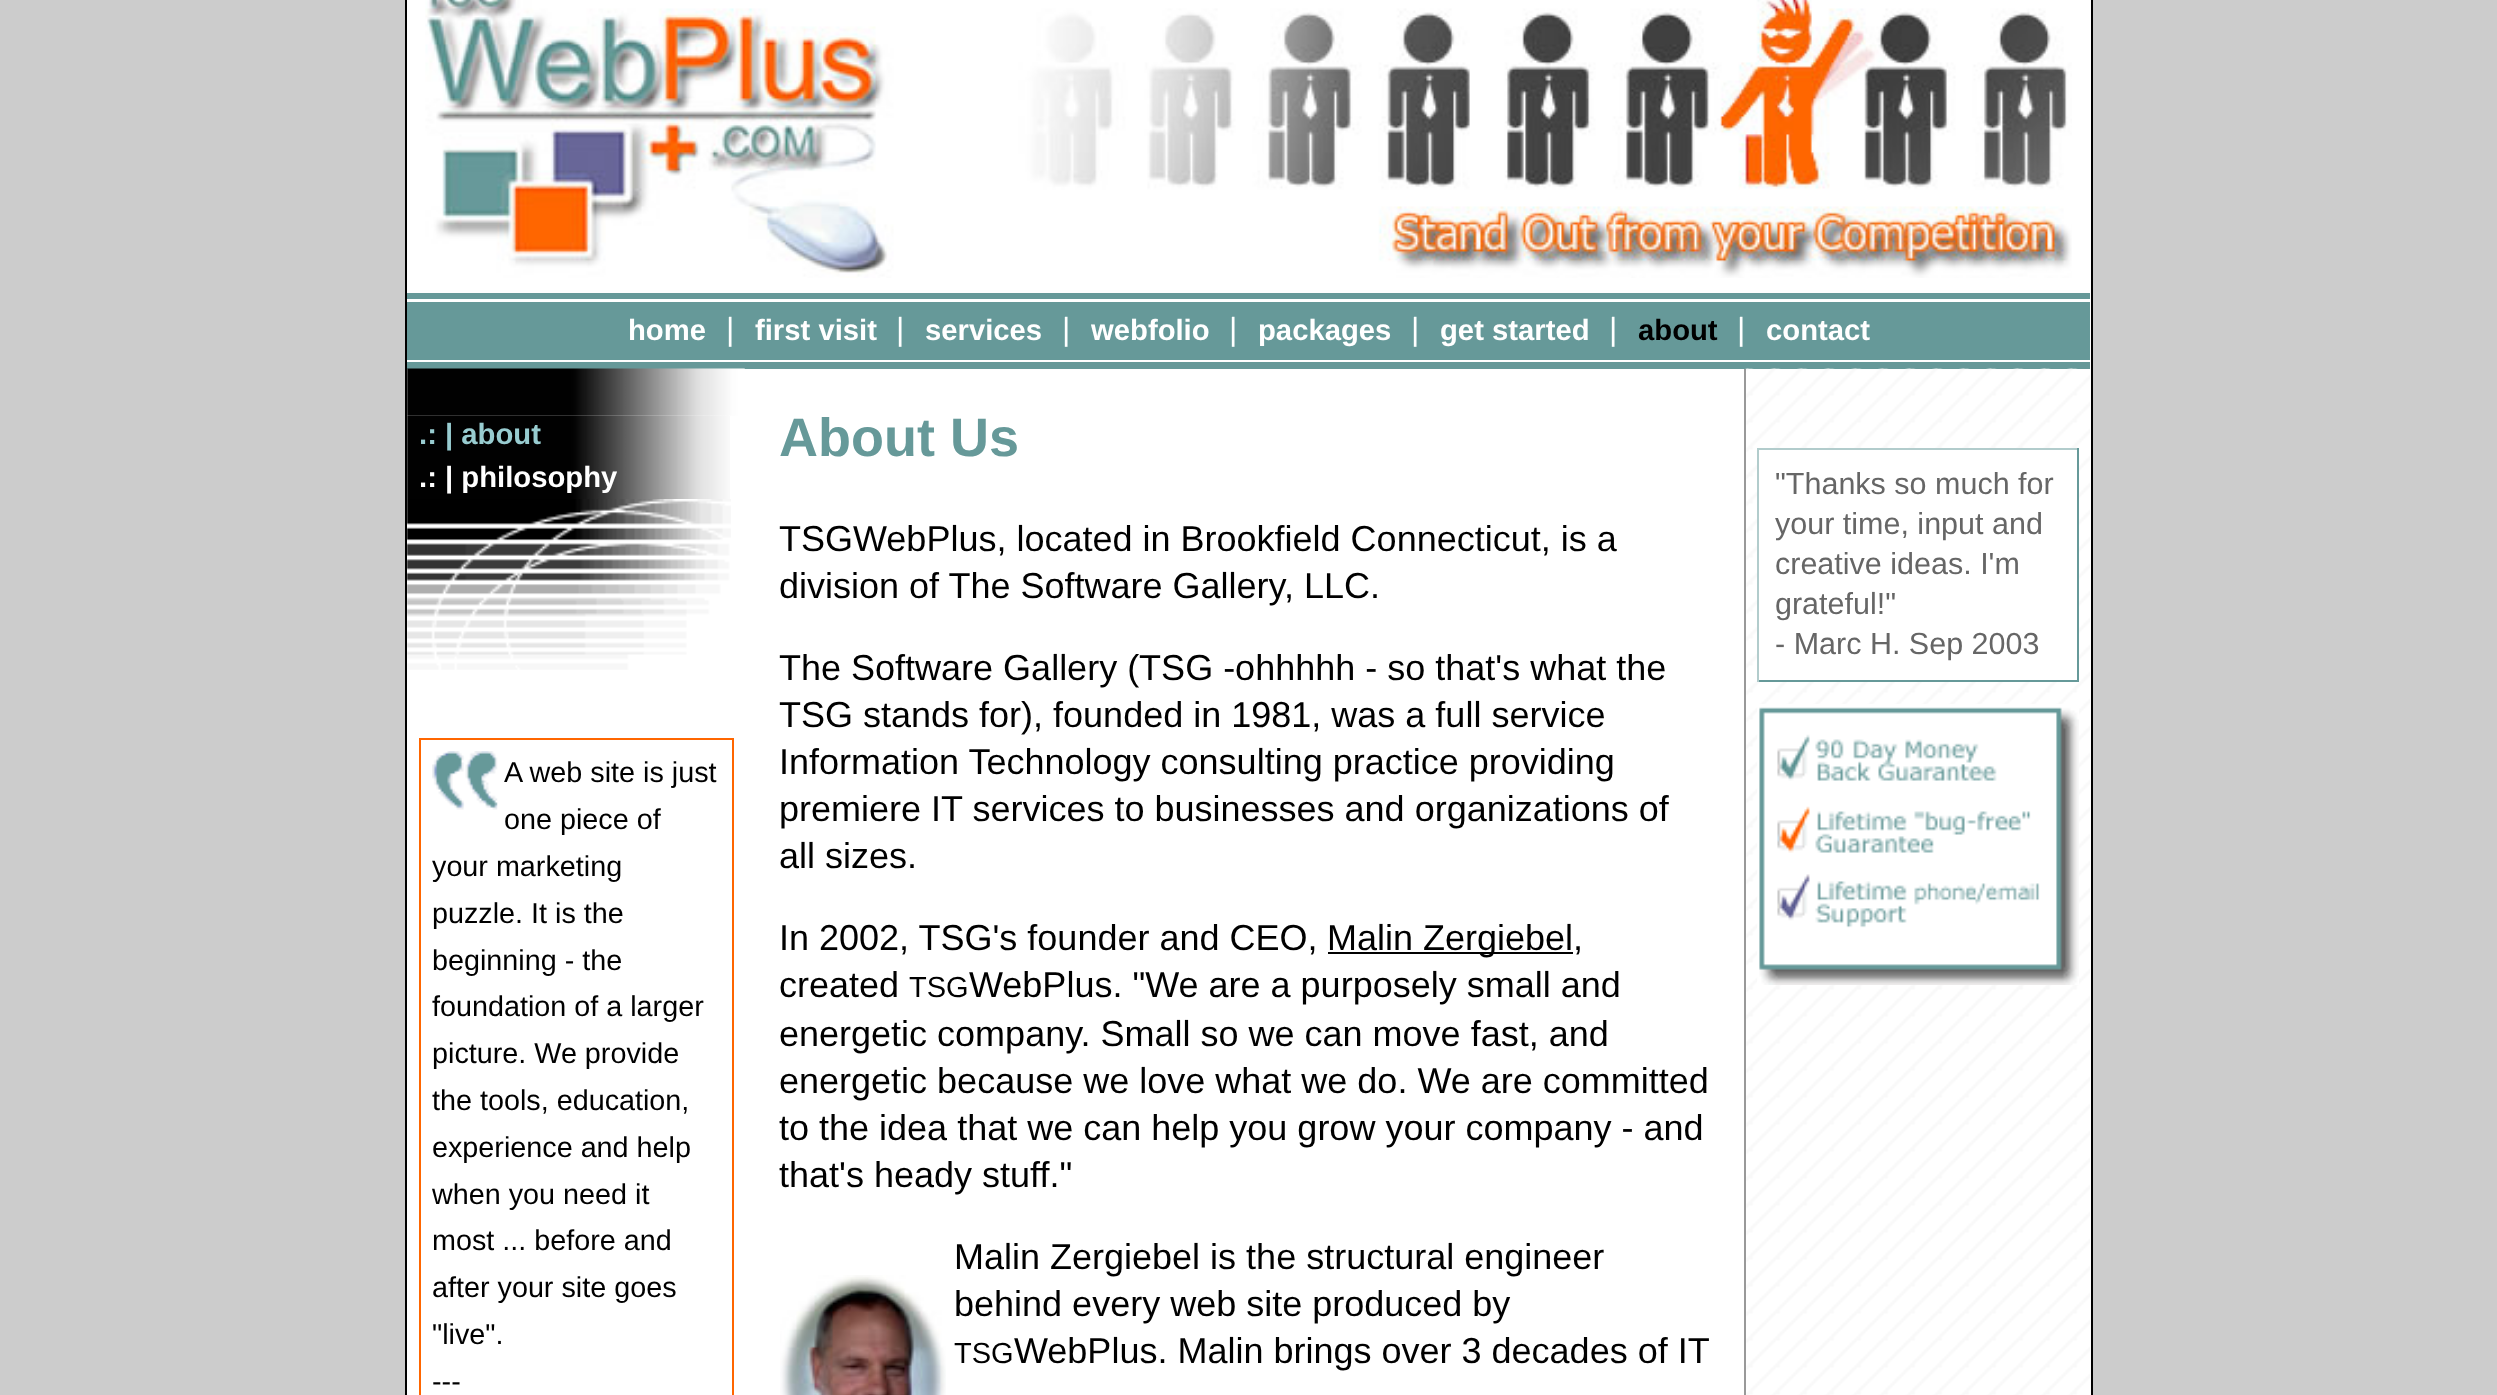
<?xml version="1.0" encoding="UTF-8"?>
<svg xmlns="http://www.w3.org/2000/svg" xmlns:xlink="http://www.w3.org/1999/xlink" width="2497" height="1395">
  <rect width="100%" height="100%" fill="#cccccc" />
  <rect x="406" y="-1" width="1686" height="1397" fill="#ffffff" stroke="#000000" stroke-width="2" />
  <image x="425" y="0" width="1647" height="278" xlink:href="image1.png" />
  <rect x="407" y="293" width="1683" height="6" fill="#669999" />
  <rect x="407" y="302" width="1683" height="58" fill="#669999" />
  <rect x="407" y="362" width="1683" height="7" fill="#669999" />
  <image x="407" y="368" width="338" height="48" xlink:href="image2.png" />
  <image x="407" y="415" width="323" height="84" xlink:href="image3.png" />
  <image x="407" y="499" width="324" height="171" xlink:href="image4.png" />
  <rect x="420" y="739" width="313" height="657" fill="none" stroke="#ff6600" stroke-width="2" />
  <image x="432" y="751" width="66" height="59" xlink:href="image5.png" />
  <rect x="1328" y="952" width="245" height="2" fill="#000000" />
  <image x="780" y="1275" width="166" height="120" xlink:href="image6.png" />
  <image x="1745" y="368" width="345" height="1027" xlink:href="image7.png" />
  <rect x="1744" y="369" width="2" height="1026" fill="#999999" />
  <rect x="1759" y="450" width="318" height="230" fill="#ffffff" />
  <rect x="1757" y="448" width="322" height="2" fill="#b2cccc" />
  <rect x="2077" y="448" width="2" height="234" fill="#669999" />
  <rect x="1757" y="680" width="322" height="2" fill="#669999" />
  <rect x="1757" y="448" width="2" height="234" fill="#b2cccc" />
  <image x="1757" y="704" width="322" height="281" xlink:href="image8.png" />
  <text x="628" y="340" style="font-family: Liberation Sans; font-size: 29.25px; font-weight: bold; fill: #ffffff">home</text>
  <text x="726" y="340" style="font-family: Liberation Sans; font-size: 32px; fill: #ffffff">|</text>
  <text x="755" y="340" style="font-family: Liberation Sans; font-size: 29.25px; font-weight: bold; fill: #ffffff">first visit</text>
  <text x="896" y="340" style="font-family: Liberation Sans; font-size: 32px; fill: #ffffff">|</text>
  <text x="925" y="340" style="font-family: Liberation Sans; font-size: 29.25px; font-weight: bold; fill: #ffffff">services</text>
  <text x="1062" y="340" style="font-family: Liberation Sans; font-size: 32px; fill: #ffffff">|</text>
  <text x="1091" y="340" style="font-family: Liberation Sans; font-size: 29.25px; font-weight: bold; fill: #ffffff">webfolio</text>
  <text x="1229" y="340" style="font-family: Liberation Sans; font-size: 32px; fill: #ffffff">|</text>
  <text x="1258" y="340" style="font-family: Liberation Sans; font-size: 29.25px; font-weight: bold; fill: #ffffff">packages</text>
  <text x="1411" y="340" style="font-family: Liberation Sans; font-size: 32px; fill: #ffffff">|</text>
  <text x="1440" y="340" style="font-family: Liberation Sans; font-size: 29.25px; font-weight: bold; fill: #ffffff">get started</text>
  <text x="1609" y="340" style="font-family: Liberation Sans; font-size: 32px; fill: #ffffff">|</text>
  <text x="1638" y="340" style="font-family: Liberation Sans; font-size: 29.25px; font-weight: bold; fill: #000000">about</text>
  <text x="1737" y="340" style="font-family: Liberation Sans; font-size: 32px; fill: #ffffff">|</text>
  <text x="1766" y="340" style="font-family: Liberation Sans; font-size: 29.25px; font-weight: bold; fill: #ffffff">contact</text>
  <text x="419" y="444" style="font-family: Liberation Sans; font-size: 29.25px; font-weight: bold; fill: #98ccd0">.: | about</text>
  <text x="419" y="487" style="font-family: Liberation Sans; font-size: 29.25px; font-weight: bold; fill: #ffffff">.: | philosophy</text>
  <text x="504" y="782" style="font-family: Liberation Sans; font-size: 28.75px; fill: #000000">A web site is just</text>
  <text x="504" y="829" style="font-family: Liberation Sans; font-size: 28.75px; fill: #000000">one piece of</text>
  <text x="432" y="876" style="font-family: Liberation Sans; font-size: 28.75px; fill: #000000">your marketing</text>
  <text x="432" y="923" style="font-family: Liberation Sans; font-size: 28.75px; fill: #000000">puzzle. It is the</text>
  <text x="432" y="970" style="font-family: Liberation Sans; font-size: 28.75px; fill: #000000">beginning - the</text>
  <text x="432" y="1016" style="font-family: Liberation Sans; font-size: 28.75px; fill: #000000">foundation of a larger</text>
  <text x="432" y="1063" style="font-family: Liberation Sans; font-size: 28.75px; fill: #000000">picture. We provide</text>
  <text x="432" y="1110" style="font-family: Liberation Sans; font-size: 28.75px; fill: #000000">the tools, education,</text>
  <text x="432" y="1157" style="font-family: Liberation Sans; font-size: 28.75px; fill: #000000">experience and help</text>
  <text x="432" y="1204" style="font-family: Liberation Sans; font-size: 28.75px; fill: #000000">when you need it</text>
  <text x="432" y="1250" style="font-family: Liberation Sans; font-size: 28.75px; fill: #000000">most ... before and</text>
  <text x="432" y="1297" style="font-family: Liberation Sans; font-size: 28.75px; fill: #000000">after your site goes</text>
  <text x="432" y="1344" style="font-family: Liberation Sans; font-size: 28.75px; fill: #000000">"live".</text>
  <text x="432" y="1391" style="font-family: Liberation Sans; font-size: 28.75px; fill: #000000">---</text>
  <text x="779" y="456" style="font-family: Liberation Sans; font-size: 54px; font-weight: bold; fill: #669999">About Us</text>
  <text x="779" y="551" style="font-family: Liberation Sans; font-size: 36px; fill: #000000">TSGWebPlus, located in Brookfield Connecticut, is a</text>
  <text x="779" y="598" style="font-family: Liberation Sans; font-size: 36px; fill: #000000">division of The Software Gallery, LLC.</text>
  <text x="779" y="680" style="font-family: Liberation Sans; font-size: 36px; fill: #000000">The Software Gallery (TSG -ohhhhh - so that's what the</text>
  <text x="779" y="727" style="font-family: Liberation Sans; font-size: 36px; fill: #000000">TSG stands for), founded in 1981, was a full service</text>
  <text x="779" y="774" style="font-family: Liberation Sans; font-size: 36px; fill: #000000">Information Technology consulting practice providing</text>
  <text x="779" y="821" style="font-family: Liberation Sans; font-size: 36px; fill: #000000">premiere IT services to businesses and organizations of</text>
  <text x="779" y="868" style="font-family: Liberation Sans; font-size: 36px; fill: #000000">all sizes.</text>
  <text x="779" y="950" style="font-family: Liberation Sans; font-size: 36px; fill: #000000">In 2002, TSG's founder and CEO,</text>
  <text x="1327" y="950" style="font-family: Liberation Sans; font-size: 36px; fill: #000000">Malin Zergiebel,</text>
  <text x="779" y="997" style="font-family: Liberation Sans; font-size: 36px; fill: #000000">created</text>
  <text x="909" y="997" style="font-family: Liberation Sans; font-size: 29px; fill: #000000">TSG</text>
  <text x="969" y="997" style="font-family: Liberation Sans; font-size: 36px; fill: #000000">WebPlus. "We are a purposely small and</text>
  <text x="779" y="1046" style="font-family: Liberation Sans; font-size: 36px; fill: #000000">energetic company. Small so we can move fast, and</text>
  <text x="779" y="1093" style="font-family: Liberation Sans; font-size: 36px; fill: #000000">energetic because we love what we do. We are committed</text>
  <text x="779" y="1140" style="font-family: Liberation Sans; font-size: 36px; fill: #000000">to the idea that we can help you grow your company - and</text>
  <text x="779" y="1187" style="font-family: Liberation Sans; font-size: 36px; fill: #000000">that's heady stuff."</text>
  <text x="954" y="1269" style="font-family: Liberation Sans; font-size: 36px; fill: #000000">Malin Zergiebel is the structural engineer</text>
  <text x="954" y="1316" style="font-family: Liberation Sans; font-size: 36px; fill: #000000">behind every web site produced by</text>
  <text x="954" y="1363" style="font-family: Liberation Sans; font-size: 29px; fill: #000000">TSG</text>
  <text x="1014" y="1363" style="font-family: Liberation Sans; font-size: 36px; fill: #000000">WebPlus. Malin brings over 3 decades of IT</text>
  <text x="1775" y="494" style="font-family: Liberation Sans; font-size: 30.5px; fill: #666666">"Thanks so much for</text>
  <text x="1775" y="534" style="font-family: Liberation Sans; font-size: 30.5px; fill: #666666">your time, input and</text>
  <text x="1775" y="574" style="font-family: Liberation Sans; font-size: 30.5px; fill: #666666">creative ideas. I'm</text>
  <text x="1775" y="614" style="font-family: Liberation Sans; font-size: 30.5px; fill: #666666">grateful!"</text>
  <text x="1775" y="654" style="font-family: Liberation Sans; font-size: 30.5px; fill: #666666">- Marc H. Sep 2003</text>
</svg>
